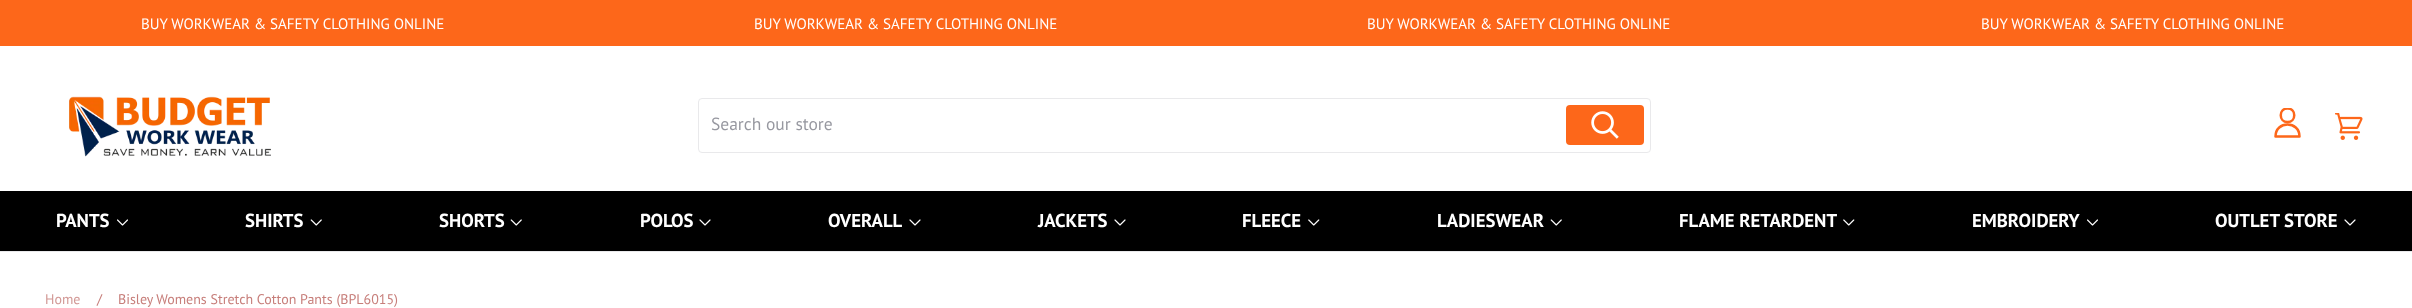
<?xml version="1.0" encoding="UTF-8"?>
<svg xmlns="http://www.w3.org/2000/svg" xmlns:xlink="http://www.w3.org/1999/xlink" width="2412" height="308">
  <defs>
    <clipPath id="clip1"><rect x="2273" y="108" width="31" height="30" /></clipPath>
  </defs>
  <rect width="100%" height="100%" fill="#ffffff" />
  <rect width="2412" height="46" fill="#fd671a" />
  <image x="69" y="96" width="202" height="61" xlink:href="image1.png" />
  <rect x="698.5" y="98.5" width="952" height="54" rx="3.5" fill="none" stroke="#e9e9eb" />
  <rect x="1566" y="105" width="78" height="40" rx="4" fill="#fd671a" />
  <image x="1591" y="111" width="28" height="28" xlink:href="image2.png" />
  <path d="M 2299.5 136.5 c 0 -16 -24 -16 -24 0 z" fill="none" stroke="#fd671a" stroke-width="2.5" stroke-linecap="round" stroke-linejoin="round" />
  <g clip-path="url(#clip1)">
    <path d="M 2287.5 122 c 9 0 9 -13.5 0 -13.5 c -9 0 -9 13.5 0 13.5 z" fill="none" stroke="#fd671a" stroke-width="2.5" stroke-linecap="round" stroke-linejoin="round" />
  </g>
  <image x="2335" y="113" width="28" height="27" xlink:href="image3.png" />
  <rect y="251" width="2412" height="1" fill="#e9e9eb" />
  <rect y="191" width="2412" height="60" fill="#000000" />
  <image x="117" y="219" width="11" height="7" xlink:href="image4.png" />
  <image x="310" y="219" width="12" height="7" xlink:href="image5.png" />
  <image x="510" y="219" width="12" height="7" xlink:href="image5.png" />
  <image x="699" y="219" width="12" height="7" xlink:href="image6.png" />
  <image x="909" y="219" width="12" height="7" xlink:href="image6.png" />
  <image x="1114" y="219" width="12" height="7" xlink:href="image6.png" />
  <image x="1308" y="219" width="12" height="7" xlink:href="image7.png" />
  <image x="1550" y="219" width="12" height="7" xlink:href="image5.png" />
  <image x="1843" y="219" width="12" height="7" xlink:href="image7.png" />
  <image x="2087" y="219" width="11" height="7" xlink:href="image4.png" />
  <image x="2344" y="219" width="12" height="7" xlink:href="image6.png" />
  <text x="141" y="29" style="font-family: PT Sans; font-size: 15px; fill: #ffffff">BUY WORKWEAR &amp; SAFETY CLOTHING ONLINE</text>
  <text x="754" y="29" style="font-family: PT Sans; font-size: 15px; fill: #ffffff">BUY WORKWEAR &amp; SAFETY CLOTHING ONLINE</text>
  <text x="1367" y="29" style="font-family: PT Sans; font-size: 15px; fill: #ffffff">BUY WORKWEAR &amp; SAFETY CLOTHING ONLINE</text>
  <text x="1981" y="29" style="font-family: PT Sans; font-size: 15px; fill: #ffffff">BUY WORKWEAR &amp; SAFETY CLOTHING ONLINE</text>
  <text x="711" y="130" style="font-family: PT Sans; font-size: 17.5px; fill: #9798a0">Search our store</text>
  <text x="56" y="227" style="font-family: PT Sans; font-size: 18.75px; font-weight: bold; fill: #ffffff">PANTS</text>
  <text x="245" y="227" style="font-family: PT Sans; font-size: 18.75px; font-weight: bold; fill: #ffffff">SHIRTS</text>
  <text x="439" y="227" style="font-family: PT Sans; font-size: 18.75px; font-weight: bold; fill: #ffffff">SHORTS</text>
  <text x="640" y="227" style="font-family: PT Sans; font-size: 18.75px; font-weight: bold; fill: #ffffff">POLOS</text>
  <text x="828" y="227" style="font-family: PT Sans; font-size: 18.75px; font-weight: bold; fill: #ffffff">OVERALL</text>
  <text x="1038" y="227" style="font-family: PT Sans; font-size: 18.75px; font-weight: bold; fill: #ffffff">JACKETS</text>
  <text x="1242" y="227" style="font-family: PT Sans; font-size: 18.75px; font-weight: bold; fill: #ffffff">FLEECE</text>
  <text x="1437" y="227" style="font-family: PT Sans; font-size: 18.75px; font-weight: bold; fill: #ffffff">LADIESWEAR</text>
  <text x="1679" y="227" style="font-family: PT Sans; font-size: 18.75px; font-weight: bold; fill: #ffffff">FLAME RETARDENT</text>
  <text x="1972" y="227" style="font-family: PT Sans; font-size: 18.75px; font-weight: bold; fill: #ffffff">EMBROIDERY</text>
  <text x="2215" y="227" style="font-family: PT Sans; font-size: 18.75px; font-weight: bold; fill: #ffffff">OUTLET STORE</text>
  <text x="45" y="304" style="font-family: PT Sans; font-size: 14px; fill: #d29895">Home</text>
  <text x="97" y="304" style="font-family: PT Sans; font-size: 14px; fill: #c77e7a">/</text>
  <text x="118" y="304" style="font-family: PT Sans; font-size: 14px; fill: #c77e7a">Bisley Womens Stretch Cotton Pants (BPL6015)</text>
</svg>
